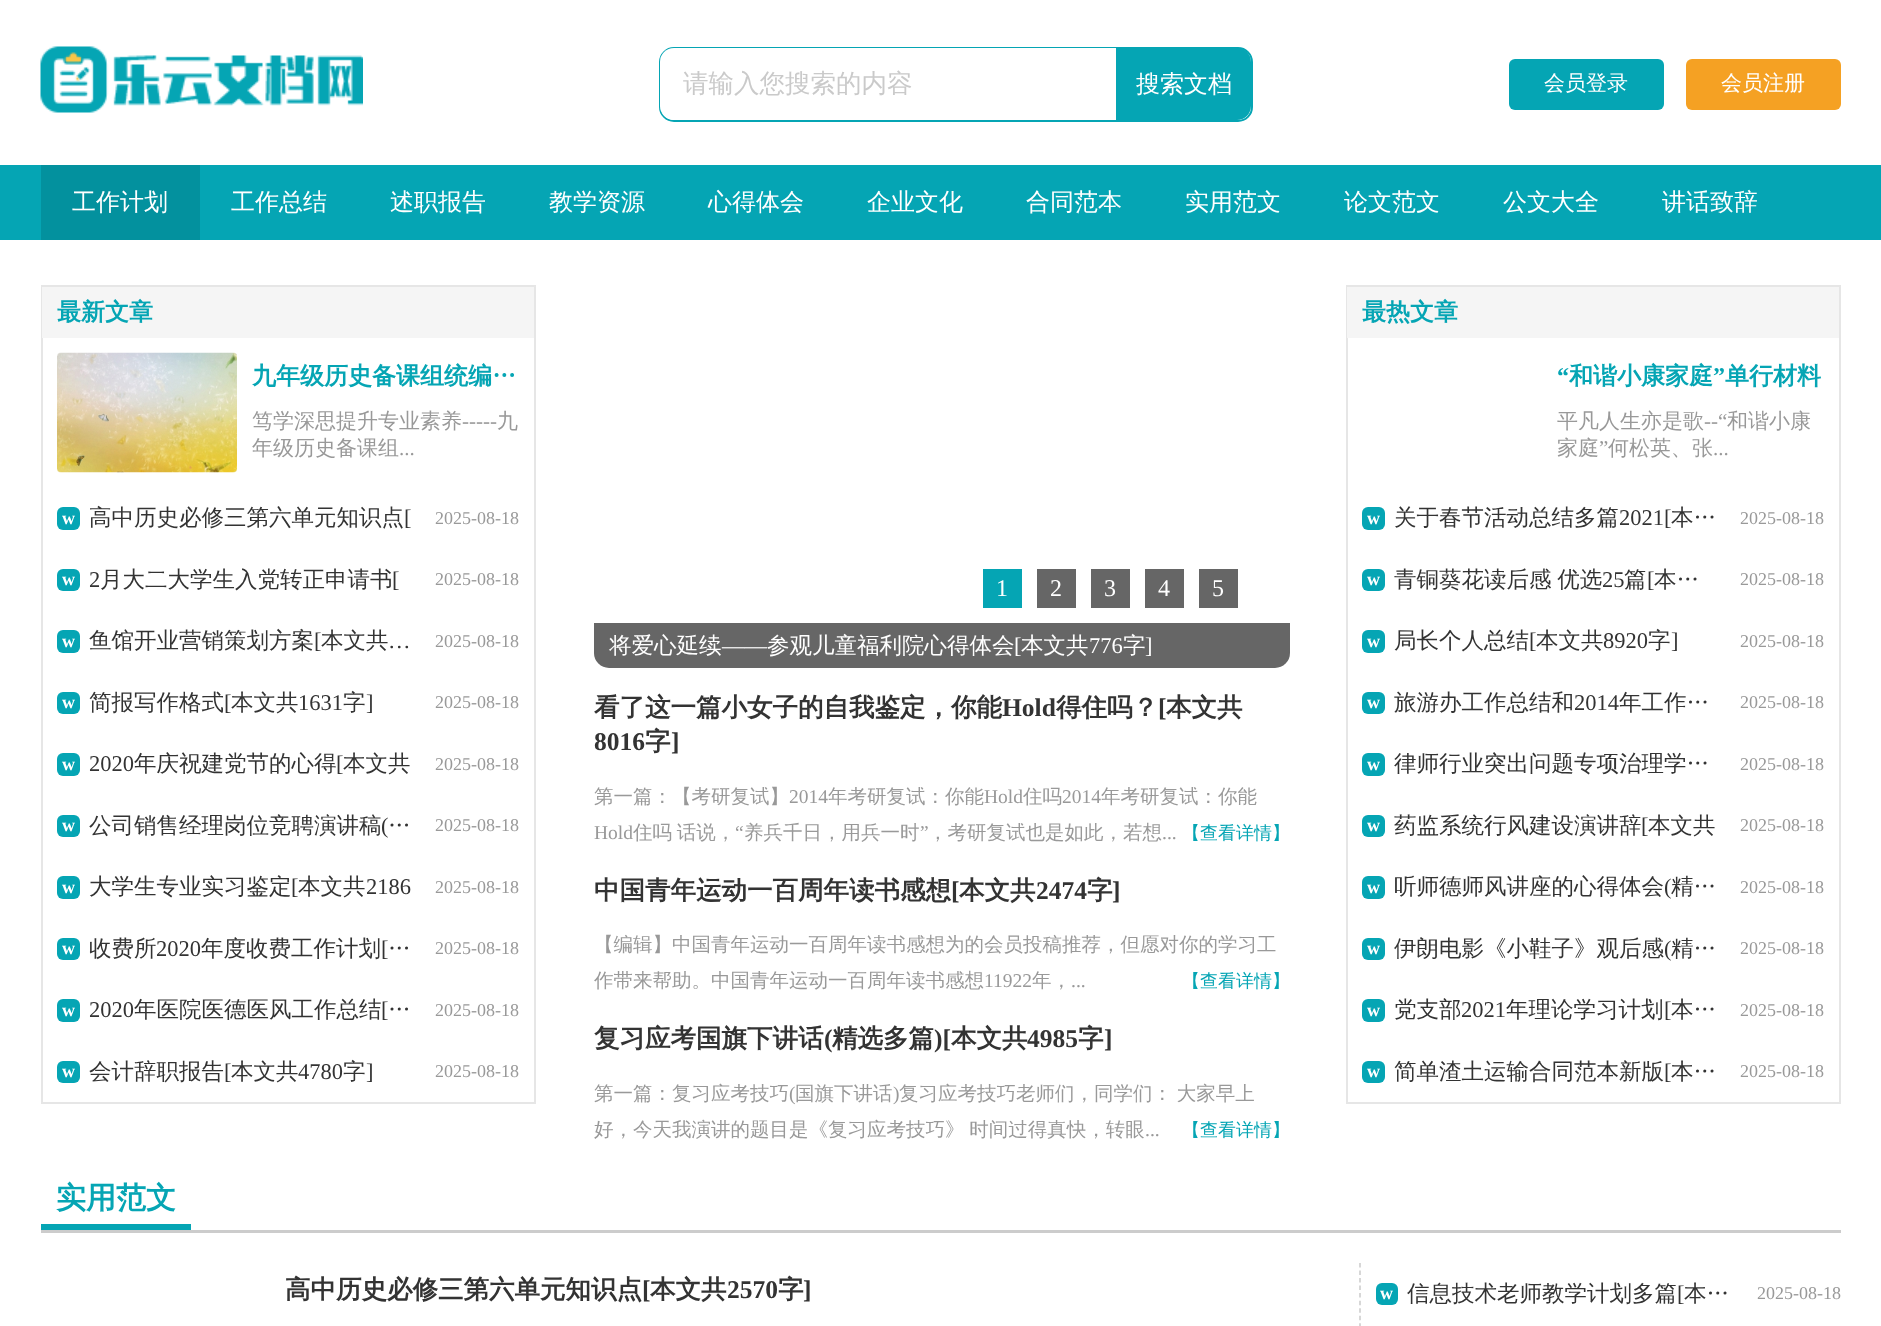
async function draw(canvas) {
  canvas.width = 1881;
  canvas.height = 1326;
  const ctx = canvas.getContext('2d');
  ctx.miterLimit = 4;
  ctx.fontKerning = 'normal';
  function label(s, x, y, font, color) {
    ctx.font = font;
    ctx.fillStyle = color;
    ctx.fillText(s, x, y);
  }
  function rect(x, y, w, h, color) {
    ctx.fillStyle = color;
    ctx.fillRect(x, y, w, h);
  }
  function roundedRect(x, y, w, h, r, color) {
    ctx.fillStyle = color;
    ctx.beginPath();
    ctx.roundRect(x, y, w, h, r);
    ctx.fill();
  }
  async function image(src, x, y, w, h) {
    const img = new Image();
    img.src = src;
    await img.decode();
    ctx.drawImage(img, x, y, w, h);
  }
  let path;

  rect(0, 0, 1881, 1326, '#fff');
  await image('assets/img1.png', 40, 46, 323, 67);
  ctx.beginPath();
  ctx.roundRect(660, 48, 592, 73, 14);
  ctx.strokeStyle = '#05a5b4';
  ctx.lineWidth = 2;
  ctx.stroke();
  ctx.beginPath();
  ctx.roundRect(660, 48, 456, 72, [14, 0, 0, 14]);
  ctx.fill();
  label('请输入您搜索的内容', 683, 92, '500 25.5px WenQuanYi Zen Hei', '#cacaca');
  ctx.fillStyle = '#05a5b4';
  ctx.beginPath();
  ctx.roundRect(1116, 48, 135, 72, [0, 14, 14, 0]);
  ctx.fill();
  label('搜索文档', 1136, 92, '500 24px WenQuanYi Zen Hei', '#fff');
  roundedRect(1509, 59, 155, 51, 6, '#05a5b4');
  label('会员登录', 1544, 90, '500 21px WenQuanYi Zen Hei', '#fff');
  roundedRect(1686, 59, 155, 51, 6, '#f5a123');
  label('会员注册', 1721, 90, '500 21px WenQuanYi Zen Hei', '#fff');
  rect(0, 165, 1881, 75, '#05a5b4');
  rect(41, 165, 159, 75, '#03919e');
  label('工作计划', 72, 210, '500 24px WenQuanYi Zen Hei', '#fff');
  label('工作总结', 231, 210, '500 24px WenQuanYi Zen Hei', '#fff');
  label('述职报告', 390, 210, '500 24px WenQuanYi Zen Hei', '#fff');
  label('教学资源', 549, 210, '500 24px WenQuanYi Zen Hei', '#fff');
  label('心得体会', 708, 210, '500 24px WenQuanYi Zen Hei', '#fff');
  label('企业文化', 867, 210, '500 24px WenQuanYi Zen Hei', '#fff');
  label('合同范本', 1026, 210, '500 24px WenQuanYi Zen Hei', '#fff');
  label('实用范文', 1185, 210, '500 24px WenQuanYi Zen Hei', '#fff');
  label('论文范文', 1344, 210, '500 24px WenQuanYi Zen Hei', '#fff');
  label('公文大全', 1503, 210, '500 24px WenQuanYi Zen Hei', '#fff');
  label('讲话致辞', 1662, 210, '500 24px WenQuanYi Zen Hei', '#fff');
  ctx.strokeStyle = '#e6e6e6';
  ctx.strokeRect(42, 286, 493, 817);
  rect(42, 287, 492, 51, '#f5f5f5');
  label('最新文章', 57, 320, 'bold 24px WenQuanYi Zen Hei', '#05a5b4');
  await image('assets/img2.png', 57, 352, 180, 121);
  label('九年级历史备课组统编…', 252, 384, 'bold 24px WenQuanYi Zen Hei', '#05a5b4');
  label('笃学深思提升专业素养', 252, 428, '500 21px WenQuanYi Zen Hei', '#999');
  label('-----', 462, 428, '21px Liberation Serif', '#999');
  label('九', 497, 428, '500 21px WenQuanYi Zen Hei', '#999');
  label('年级历史备课组', 252, 455, '500 21px WenQuanYi Zen Hei', '#999');
  label('...', 399, 455, '21px Liberation Serif', '#999');
  roundedRect(57, 507, 23, 23, 6, '#05a5b4');
  label('w', 62, 524, 'bold 18px Liberation Serif', '#fff');
  label('高中历史必修三第六单元知识点', 89, 525, '500 22.5px WenQuanYi Zen Hei', '#333');
  label('[', 404, 525, '22.5px Liberation Serif', '#333');
  label('2025-08-18', 435, 524, '18px Liberation Serif', '#999');
  roundedRect(57, 569, 23, 22, 6, '#05a5b4');
  label('w', 62, 585, 'bold 18px Liberation Serif', '#fff');
  label('2', 89, 587, '22.5px Liberation Serif', '#333');
  label('月大二大学生入党转正申请书', 100, 587, '500 22.5px WenQuanYi Zen Hei', '#333');
  label('[', 392, 587, '22.5px Liberation Serif', '#333');
  label('2025-08-18', 435, 585, '18px Liberation Serif', '#999');
  roundedRect(57, 630, 23, 23, 6, '#05a5b4');
  label('w', 62, 647, 'bold 18px Liberation Serif', '#fff');
  label('鱼馆开业营销策划方案', 89, 648, '500 22.5px WenQuanYi Zen Hei', '#333');
  label('[', 314, 648, '22.5px Liberation Serif', '#333');
  label('本文共', 321, 648, '500 22.5px WenQuanYi Zen Hei', '#333');
  label('…', 388, 648, '22.5px Liberation Serif', '#333');
  label('2025-08-18', 435, 647, '18px Liberation Serif', '#999');
  roundedRect(57, 692, 23, 22, 6, '#05a5b4');
  label('w', 62, 708, 'bold 18px Liberation Serif', '#fff');
  label('简报写作格式', 89, 710, '500 22.5px WenQuanYi Zen Hei', '#333');
  label('[', 224, 710, '22.5px Liberation Serif', '#333');
  label('本文共', 231, 710, '500 22.5px WenQuanYi Zen Hei', '#333');
  label('1631', 298, 710, '22.5px Liberation Serif', '#333');
  label('字', 343, 710, '500 22.5px WenQuanYi Zen Hei', '#333');
  label(']', 366, 710, '22.5px Liberation Serif', '#333');
  label('2025-08-18', 435, 708, '18px Liberation Serif', '#999');
  roundedRect(57, 753, 23, 23, 6, '#05a5b4');
  label('w', 62, 770, 'bold 18px Liberation Serif', '#fff');
  label('2020', 89, 771, '22.5px Liberation Serif', '#333');
  label('年庆祝建党节的心得', 134, 771, '500 22.5px WenQuanYi Zen Hei', '#333');
  label('[', 336, 771, '22.5px Liberation Serif', '#333');
  label('本文共', 343, 771, '500 22.5px WenQuanYi Zen Hei', '#333');
  label('2025-08-18', 435, 770, '18px Liberation Serif', '#999');
  roundedRect(57, 815, 23, 22, 6, '#05a5b4');
  label('w', 62, 831, 'bold 18px Liberation Serif', '#fff');
  label('公司销售经理岗位竞聘演讲稿', 89, 833, '500 22.5px WenQuanYi Zen Hei', '#333');
  label('(', 381, 833, '22.5px Liberation Serif', '#333');
  label('…', 388, 833, '500 22.5px WenQuanYi Zen Hei', '#333');
  label('2025-08-18', 435, 831, '18px Liberation Serif', '#999');
  roundedRect(57, 876, 23, 23, 6, '#05a5b4');
  label('w', 62, 893, 'bold 18px Liberation Serif', '#fff');
  label('大学生专业实习鉴定', 89, 894, '500 22.5px WenQuanYi Zen Hei', '#333');
  label('[', 291, 894, '22.5px Liberation Serif', '#333');
  label('本文共', 298, 894, '500 22.5px WenQuanYi Zen Hei', '#333');
  label('2186', 366, 894, '22.5px Liberation Serif', '#333');
  label('2025-08-18', 435, 893, '18px Liberation Serif', '#999');
  roundedRect(57, 938, 23, 22, 6, '#05a5b4');
  label('w', 62, 954, 'bold 18px Liberation Serif', '#fff');
  label('收费所', 89, 956, '500 22.5px WenQuanYi Zen Hei', '#333');
  label('2020', 156, 956, '22.5px Liberation Serif', '#333');
  label('年度收费工作计划', 201, 956, '500 22.5px WenQuanYi Zen Hei', '#333');
  label('[', 381, 956, '22.5px Liberation Serif', '#333');
  label('…', 388, 956, '500 22.5px WenQuanYi Zen Hei', '#333');
  label('2025-08-18', 435, 954, '18px Liberation Serif', '#999');
  roundedRect(57, 999, 23, 23, 6, '#05a5b4');
  label('w', 62, 1016, 'bold 18px Liberation Serif', '#fff');
  label('2020', 89, 1017, '22.5px Liberation Serif', '#333');
  label('年医院医德医风工作总结', 134, 1017, '500 22.5px WenQuanYi Zen Hei', '#333');
  label('[', 381, 1017, '22.5px Liberation Serif', '#333');
  label('…', 388, 1017, '500 22.5px WenQuanYi Zen Hei', '#333');
  label('2025-08-18', 435, 1016, '18px Liberation Serif', '#999');
  roundedRect(57, 1061, 23, 22, 6, '#05a5b4');
  label('w', 62, 1077, 'bold 18px Liberation Serif', '#fff');
  label('会计辞职报告', 89, 1079, '500 22.5px WenQuanYi Zen Hei', '#333');
  label('[', 224, 1079, '22.5px Liberation Serif', '#333');
  label('本文共', 231, 1079, '500 22.5px WenQuanYi Zen Hei', '#333');
  label('4780', 298, 1079, '22.5px Liberation Serif', '#333');
  label('字', 343, 1079, '500 22.5px WenQuanYi Zen Hei', '#333');
  label(']', 366, 1079, '22.5px Liberation Serif', '#333');
  label('2025-08-18', 435, 1077, '18px Liberation Serif', '#999');
  rect(983, 569, 39, 39, '#05a5b4');
  label('1', 996, 596, '24px Liberation Serif', '#fff');
  rect(1037, 569, 39, 39, '#666');
  label('2', 1050, 596, '24px Liberation Serif', '#fff');
  rect(1091, 569, 39, 39, '#666');
  label('3', 1104, 596, '24px Liberation Serif', '#fff');
  rect(1145, 569, 39, 39, '#666');
  label('4', 1158, 596, '24px Liberation Serif', '#fff');
  rect(1199, 569, 39, 39, '#666');
  label('5', 1212, 596, '24px Liberation Serif', '#fff');
  ctx.fillStyle = '#666';
  ctx.beginPath();
  ctx.roundRect(594, 623, 696, 45, [0, 0, 15, 15]);
  ctx.fill();
  label('将爱心延续', 609, 653, '500 22.5px WenQuanYi Zen Hei', '#fff');
  label('——', 722, 653, '22.5px Liberation Serif', '#fff');
  label('参观儿童福利院心得体会', 767, 653, '500 22.5px WenQuanYi Zen Hei', '#fff');
  label('[', 1014, 653, '22.5px Liberation Serif', '#fff');
  label('本文共', 1021, 653, '500 22.5px WenQuanYi Zen Hei', '#fff');
  label('776', 1089, 653, '22.5px Liberation Serif', '#fff');
  label('字', 1123, 653, '500 22.5px WenQuanYi Zen Hei', '#fff');
  label(']', 1145, 653, '22.5px Liberation Serif', '#fff');
  label('看了这一篇小女子的自我鉴定，你能', 594, 716, 'bold 25.5px WenQuanYi Zen Hei', '#333');
  label('Hold', 1002, 716, 'bold 25.5px Liberation Serif', '#333');
  label('得住吗？', 1056, 716, 'bold 25.5px WenQuanYi Zen Hei', '#333');
  label('[', 1158, 716, 'bold 25.5px Liberation Serif', '#333');
  label('本文共', 1166, 716, 'bold 25.5px WenQuanYi Zen Hei', '#333');
  label('8016', 594, 750, 'bold 25.5px Liberation Serif', '#333');
  label('字', 645, 750, 'bold 25.5px WenQuanYi Zen Hei', '#333');
  label(']', 671, 750, 'bold 25.5px Liberation Serif', '#333');
  label('第一篇：【考研复试】', 594, 803, '500 19.5px WenQuanYi Zen Hei', '#999');
  label('2014', 789, 803, '19.5px Liberation Serif', '#999');
  label('年考研复试：你能', 828, 803, '500 19.5px WenQuanYi Zen Hei', '#999');
  label('Hold', 984, 803, '19.5px Liberation Serif', '#999');
  label('住吗', 1023, 803, '500 19.5px WenQuanYi Zen Hei', '#999');
  label('2014', 1062, 803, '19.5px Liberation Serif', '#999');
  label('年考研复试：你能', 1101, 803, '500 19.5px WenQuanYi Zen Hei', '#999');
  label('Hold', 594, 839, '19.5px Liberation Serif', '#999');
  ctx.wordSpacing = '-1px';
  label('住吗 话说，', 633, 839, '500 19.5px WenQuanYi Zen Hei', '#999');
  ctx.wordSpacing = '0px';
  label('“', 735, 839, '19.5px Liberation Serif', '#999');
  label('养兵千日，用兵一时', 744, 839, '500 19.5px WenQuanYi Zen Hei', '#999');
  label('”', 920, 839, '19.5px Liberation Serif', '#999');
  label('，考研复试也是如此，若想', 928, 839, '500 19.5px WenQuanYi Zen Hei', '#999');
  label('【查看详情】', 1182, 839, '500 18px WenQuanYi Zen Hei', '#05a5b4');
  label('...', 1162, 839, '19.5px Liberation Serif', '#999');
  label('中国青年运动一百周年读书感想', 594, 899, 'bold 25.5px WenQuanYi Zen Hei', '#333');
  label('[', 951, 899, 'bold 25.5px Liberation Serif', '#333');
  label('本文共', 959, 899, 'bold 25.5px WenQuanYi Zen Hei', '#333');
  label('2474', 1036, 899, 'bold 25.5px Liberation Serif', '#333');
  label('字', 1087, 899, 'bold 25.5px WenQuanYi Zen Hei', '#333');
  label(']', 1112, 899, 'bold 25.5px Liberation Serif', '#333');
  label('【编辑】中国青年运动一百周年读书感想为的会员投稿推荐，但愿对你的学习工', 594, 951, '500 19.5px WenQuanYi Zen Hei', '#999');
  label('作带来帮助。中国青年运动一百周年读书感想', 594, 987, '500 19.5px WenQuanYi Zen Hei', '#999');
  label('11922', 984, 987, '19.5px Liberation Serif', '#999');
  label('年，', 1032, 987, '500 19.5px WenQuanYi Zen Hei', '#999');
  label('...', 1071, 987, '19.5px Liberation Serif', '#999');
  label('【查看详情】', 1182, 987, '500 18px WenQuanYi Zen Hei', '#05a5b4');
  label('复习应考国旗下讲话', 594, 1047, 'bold 25.5px WenQuanYi Zen Hei', '#333');
  label('(', 824, 1047, 'bold 25.5px Liberation Serif', '#333');
  label('精选多篇', 832, 1047, 'bold 25.5px WenQuanYi Zen Hei', '#333');
  label(')[', 934, 1047, 'bold 25.5px Liberation Serif', '#333');
  label('本文共', 951, 1047, 'bold 25.5px WenQuanYi Zen Hei', '#333');
  label('4985', 1027, 1047, 'bold 25.5px Liberation Serif', '#333');
  label('字', 1078, 1047, 'bold 25.5px WenQuanYi Zen Hei', '#333');
  label(']', 1104, 1047, 'bold 25.5px Liberation Serif', '#333');
  label('第一篇：复习应考技巧', 594, 1100, '500 19.5px WenQuanYi Zen Hei', '#999');
  label('(', 789, 1100, '19.5px Liberation Serif', '#999');
  label('国旗下讲话', 795, 1100, '500 19.5px WenQuanYi Zen Hei', '#999');
  label(')', 893, 1100, '19.5px Liberation Serif', '#999');
  ctx.wordSpacing = '-1px';
  label('复习应考技巧老师们，同学们： 大家早上', 899, 1100, '500 19.5px WenQuanYi Zen Hei', '#999');
  label('好，今天我演讲的题目是《复习应考技巧》 时间过得真快，转眼', 594, 1136, '500 19.5px WenQuanYi Zen Hei', '#999');
  ctx.wordSpacing = '0px';
  label('...', 1145, 1136, '19.5px Liberation Serif', '#999');
  label('【查看详情】', 1182, 1136, '500 18px WenQuanYi Zen Hei', '#05a5b4');
  ctx.strokeRect(1347, 286, 493, 817);
  rect(1347, 287, 492, 51, '#f5f5f5');
  label('最热文章', 1362, 320, 'bold 24px WenQuanYi Zen Hei', '#05a5b4');
  label('“', 1557, 384, 'bold 24px Liberation Serif', '#05a5b4');
  label('和谐小康家庭', 1569, 384, 'bold 24px WenQuanYi Zen Hei', '#05a5b4');
  label('”', 1713, 384, 'bold 24px Liberation Serif', '#05a5b4');
  label('单行材料', 1725, 384, 'bold 24px WenQuanYi Zen Hei', '#05a5b4');
  label('平凡人生亦是歌', 1557, 428, '500 21px WenQuanYi Zen Hei', '#999');
  label('--“', 1704, 428, '21px Liberation Serif', '#999');
  label('和谐小康', 1727, 428, '500 21px WenQuanYi Zen Hei', '#999');
  label('家庭', 1557, 455, '500 21px WenQuanYi Zen Hei', '#999');
  label('”', 1599, 455, '21px Liberation Serif', '#999');
  label('何松英、张', 1608, 455, '500 21px WenQuanYi Zen Hei', '#999');
  label('...', 1713, 455, '21px Liberation Serif', '#999');
  roundedRect(1362, 507, 23, 23, 6, '#05a5b4');
  label('w', 1367, 524, 'bold 18px Liberation Serif', '#fff');
  label('关于春节活动总结多篇', 1394, 525, '500 22.5px WenQuanYi Zen Hei', '#333');
  label('2021[', 1619, 525, '22.5px Liberation Serif', '#333');
  label('本…', 1671, 525, '500 22.5px WenQuanYi Zen Hei', '#333');
  label('2025-08-18', 1740, 524, '18px Liberation Serif', '#999');
  roundedRect(1362, 569, 23, 22, 6, '#05a5b4');
  label('w', 1367, 585, 'bold 18px Liberation Serif', '#fff');
  ctx.wordSpacing = '-1px';
  label('青铜葵花读后感 优选', 1394, 587, '500 22.5px WenQuanYi Zen Hei', '#333');
  ctx.wordSpacing = '0px';
  label('25', 1602, 587, '22.5px Liberation Serif', '#333');
  label('篇', 1624, 587, '500 22.5px WenQuanYi Zen Hei', '#333');
  label('[', 1647, 587, '22.5px Liberation Serif', '#333');
  label('本…', 1654, 587, '500 22.5px WenQuanYi Zen Hei', '#333');
  label('2025-08-18', 1740, 585, '18px Liberation Serif', '#999');
  roundedRect(1362, 630, 23, 23, 6, '#05a5b4');
  label('w', 1367, 647, 'bold 18px Liberation Serif', '#fff');
  label('局长个人总结', 1394, 648, '500 22.5px WenQuanYi Zen Hei', '#333');
  label('[', 1529, 648, '22.5px Liberation Serif', '#333');
  label('本文共', 1536, 648, '500 22.5px WenQuanYi Zen Hei', '#333');
  label('8920', 1603, 648, '22.5px Liberation Serif', '#333');
  label('字', 1648, 648, '500 22.5px WenQuanYi Zen Hei', '#333');
  label(']', 1671, 648, '22.5px Liberation Serif', '#333');
  label('2025-08-18', 1740, 647, '18px Liberation Serif', '#999');
  roundedRect(1362, 692, 23, 22, 6, '#05a5b4');
  label('w', 1367, 708, 'bold 18px Liberation Serif', '#fff');
  label('旅游办工作总结和', 1394, 710, '500 22.5px WenQuanYi Zen Hei', '#333');
  label('2014', 1574, 710, '22.5px Liberation Serif', '#333');
  label('年工作…', 1619, 710, '500 22.5px WenQuanYi Zen Hei', '#333');
  label('2025-08-18', 1740, 708, '18px Liberation Serif', '#999');
  roundedRect(1362, 753, 23, 23, 6, '#05a5b4');
  label('w', 1367, 770, 'bold 18px Liberation Serif', '#fff');
  label('律师行业突出问题专项治理学…', 1394, 771, '500 22.5px WenQuanYi Zen Hei', '#333');
  label('2025-08-18', 1740, 770, '18px Liberation Serif', '#999');
  roundedRect(1362, 815, 23, 22, 6, '#05a5b4');
  label('w', 1367, 831, 'bold 18px Liberation Serif', '#fff');
  label('药监系统行风建设演讲辞', 1394, 833, '500 22.5px WenQuanYi Zen Hei', '#333');
  label('[', 1641, 833, '22.5px Liberation Serif', '#333');
  label('本文共', 1648, 833, '500 22.5px WenQuanYi Zen Hei', '#333');
  label('2025-08-18', 1740, 831, '18px Liberation Serif', '#999');
  roundedRect(1362, 876, 23, 23, 6, '#05a5b4');
  label('w', 1367, 893, 'bold 18px Liberation Serif', '#fff');
  label('听师德师风讲座的心得体会', 1394, 894, '500 22.5px WenQuanYi Zen Hei', '#333');
  label('(', 1664, 894, '22.5px Liberation Serif', '#333');
  label('精…', 1671, 894, '500 22.5px WenQuanYi Zen Hei', '#333');
  label('2025-08-18', 1740, 893, '18px Liberation Serif', '#999');
  roundedRect(1362, 938, 23, 22, 6, '#05a5b4');
  label('w', 1367, 954, 'bold 18px Liberation Serif', '#fff');
  label('伊朗电影《小鞋子》观后感', 1394, 956, '500 22.5px WenQuanYi Zen Hei', '#333');
  label('(', 1664, 956, '22.5px Liberation Serif', '#333');
  label('精…', 1671, 956, '500 22.5px WenQuanYi Zen Hei', '#333');
  label('2025-08-18', 1740, 954, '18px Liberation Serif', '#999');
  roundedRect(1362, 999, 23, 23, 6, '#05a5b4');
  label('w', 1367, 1016, 'bold 18px Liberation Serif', '#fff');
  label('党支部', 1394, 1017, '500 22.5px WenQuanYi Zen Hei', '#333');
  label('2021', 1461, 1017, '22.5px Liberation Serif', '#333');
  label('年理论学习计划', 1506, 1017, '500 22.5px WenQuanYi Zen Hei', '#333');
  label('[', 1664, 1017, '22.5px Liberation Serif', '#333');
  label('本…', 1671, 1017, '500 22.5px WenQuanYi Zen Hei', '#333');
  label('2025-08-18', 1740, 1016, '18px Liberation Serif', '#999');
  roundedRect(1362, 1061, 23, 22, 6, '#05a5b4');
  label('w', 1367, 1077, 'bold 18px Liberation Serif', '#fff');
  label('简单渣土运输合同范本新版', 1394, 1079, '500 22.5px WenQuanYi Zen Hei', '#333');
  label('[', 1664, 1079, '22.5px Liberation Serif', '#333');
  label('本…', 1671, 1079, '500 22.5px WenQuanYi Zen Hei', '#333');
  label('2025-08-18', 1740, 1077, '18px Liberation Serif', '#999');
  rect(41, 1230, 1800, 3, '#ccc');
  rect(41, 1224, 150, 6, '#05a5b4');
  label('实用范文', 56, 1208, 'bold 30px WenQuanYi Zen Hei', '#05a5b4');
  label('高中历史必修三第六单元知识点', 285, 1298, 'bold 25.5px WenQuanYi Zen Hei', '#333');
  label('[', 642, 1298, 'bold 25.5px Liberation Serif', '#333');
  label('本文共', 650, 1298, 'bold 25.5px WenQuanYi Zen Hei', '#333');
  label('2570', 727, 1298, 'bold 25.5px Liberation Serif', '#333');
  label('字', 778, 1298, 'bold 25.5px WenQuanYi Zen Hei', '#333');
  label(']', 803, 1298, 'bold 25.5px Liberation Serif', '#333');
  path = new Path2D('M1360 1263V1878');
  ctx.strokeStyle = '#cacaca';
  ctx.lineWidth = 1.5;
  ctx.setLineDash([4.5, 3.03]);
  ctx.stroke(path);
  roundedRect(1376, 1283, 22, 22, 6, '#05a5b4');
  label('w', 1380, 1299, 'bold 18px Liberation Serif', '#fff');
  label('信息技术老师教学计划多篇', 1407, 1301, '500 22.5px WenQuanYi Zen Hei', '#333');
  label('[', 1677, 1301, '22.5px Liberation Serif', '#333');
  label('本…', 1684, 1301, '500 22.5px WenQuanYi Zen Hei', '#333');
  label('2025-08-18', 1757, 1299, '18px Liberation Serif', '#999');
}

draw(document.querySelector('canvas'));
